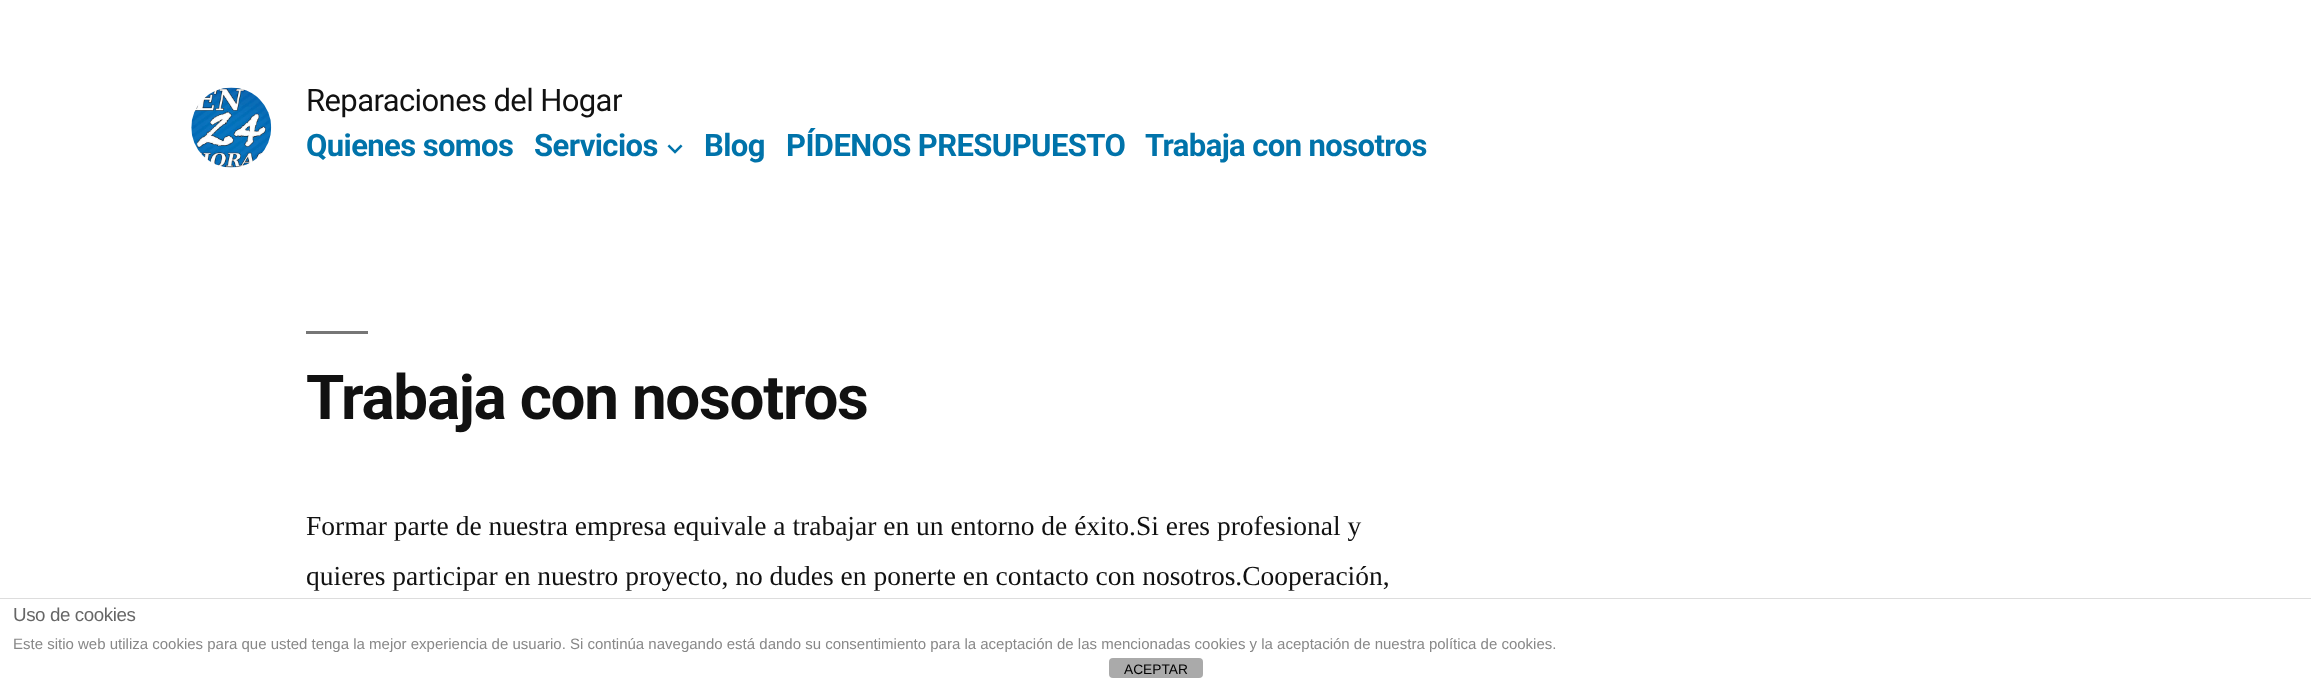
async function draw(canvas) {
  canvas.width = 2311;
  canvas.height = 684;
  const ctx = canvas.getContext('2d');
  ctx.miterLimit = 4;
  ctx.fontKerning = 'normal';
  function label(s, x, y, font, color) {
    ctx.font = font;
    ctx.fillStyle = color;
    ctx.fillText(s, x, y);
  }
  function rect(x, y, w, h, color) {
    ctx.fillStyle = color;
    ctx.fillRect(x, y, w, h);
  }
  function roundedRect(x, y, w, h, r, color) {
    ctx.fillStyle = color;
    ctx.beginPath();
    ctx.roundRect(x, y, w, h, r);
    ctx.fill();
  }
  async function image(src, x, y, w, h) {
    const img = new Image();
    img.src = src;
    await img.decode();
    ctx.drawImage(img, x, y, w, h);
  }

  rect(0, 0, 2311, 684, '#fff');
  await image('assets/img1.png', 191, 87, 81, 81);
  ctx.letterSpacing = '-0.6px';
  label('Reparaciones del Hogar', 306, 111, '31px Roboto', '#111');
  label('Quienes somos', 306, 156, 'bold 31px Roboto', '#0073aa');
  label('Servicios', 534, 156, 'bold 31px Roboto', '#0073aa');
  await image('assets/img2.png', 667, 144, 16, 10);
  label('Blog', 704, 156, 'bold 31px Roboto', '#0073aa');
  label('PÍDENOS PRESUPUESTO', 786, 156, 'bold 31px Roboto', '#0073aa');
  label('Trabaja con nosotros', 1145, 156, 'bold 31px Roboto', '#0073aa');
  rect(306, 331, 62, 3, '#767676');
  ctx.letterSpacing = '-1.25px';
  label('Trabaja con nosotros', 306, 419, 'bold 61.9px Roboto', '#111');
  ctx.letterSpacing = '0px';
  label('Formar parte de nuestra empresa equivale a trabajar en un entorno de éxito.Si eres profesional y', 306, 535, '27.5px Liberation Serif', '#111');
  label('quieres participar en nuestro proyecto, no dudes en ponerte en contacto con nosotros.Cooperación,', 306, 585, '27.5px Liberation Serif', '#111');
  rect(0, 598, 2311, 1, '#ddd');
  ctx.letterSpacing = '-0.4px';
  label('Uso de cookies', 13, 621, '18.75px Liberation Sans', '#666');
  ctx.letterSpacing = '0px';
  label('Este sitio web utiliza cookies para que usted tenga la mejor experiencia de usuario. Si continúa navegando está dando su consentimiento para la aceptación de las mencionadas cookies y la aceptación de nuestra política de cookies.', 13, 649, '15px Liberation Sans', '#888');
  roundedRect(1109, 658, 94, 20, 4, '#aaa');
  label('ACEPTAR', 1124, 674, '13.75px Liberation Sans', '#000');
}

draw(document.querySelector('canvas'));
